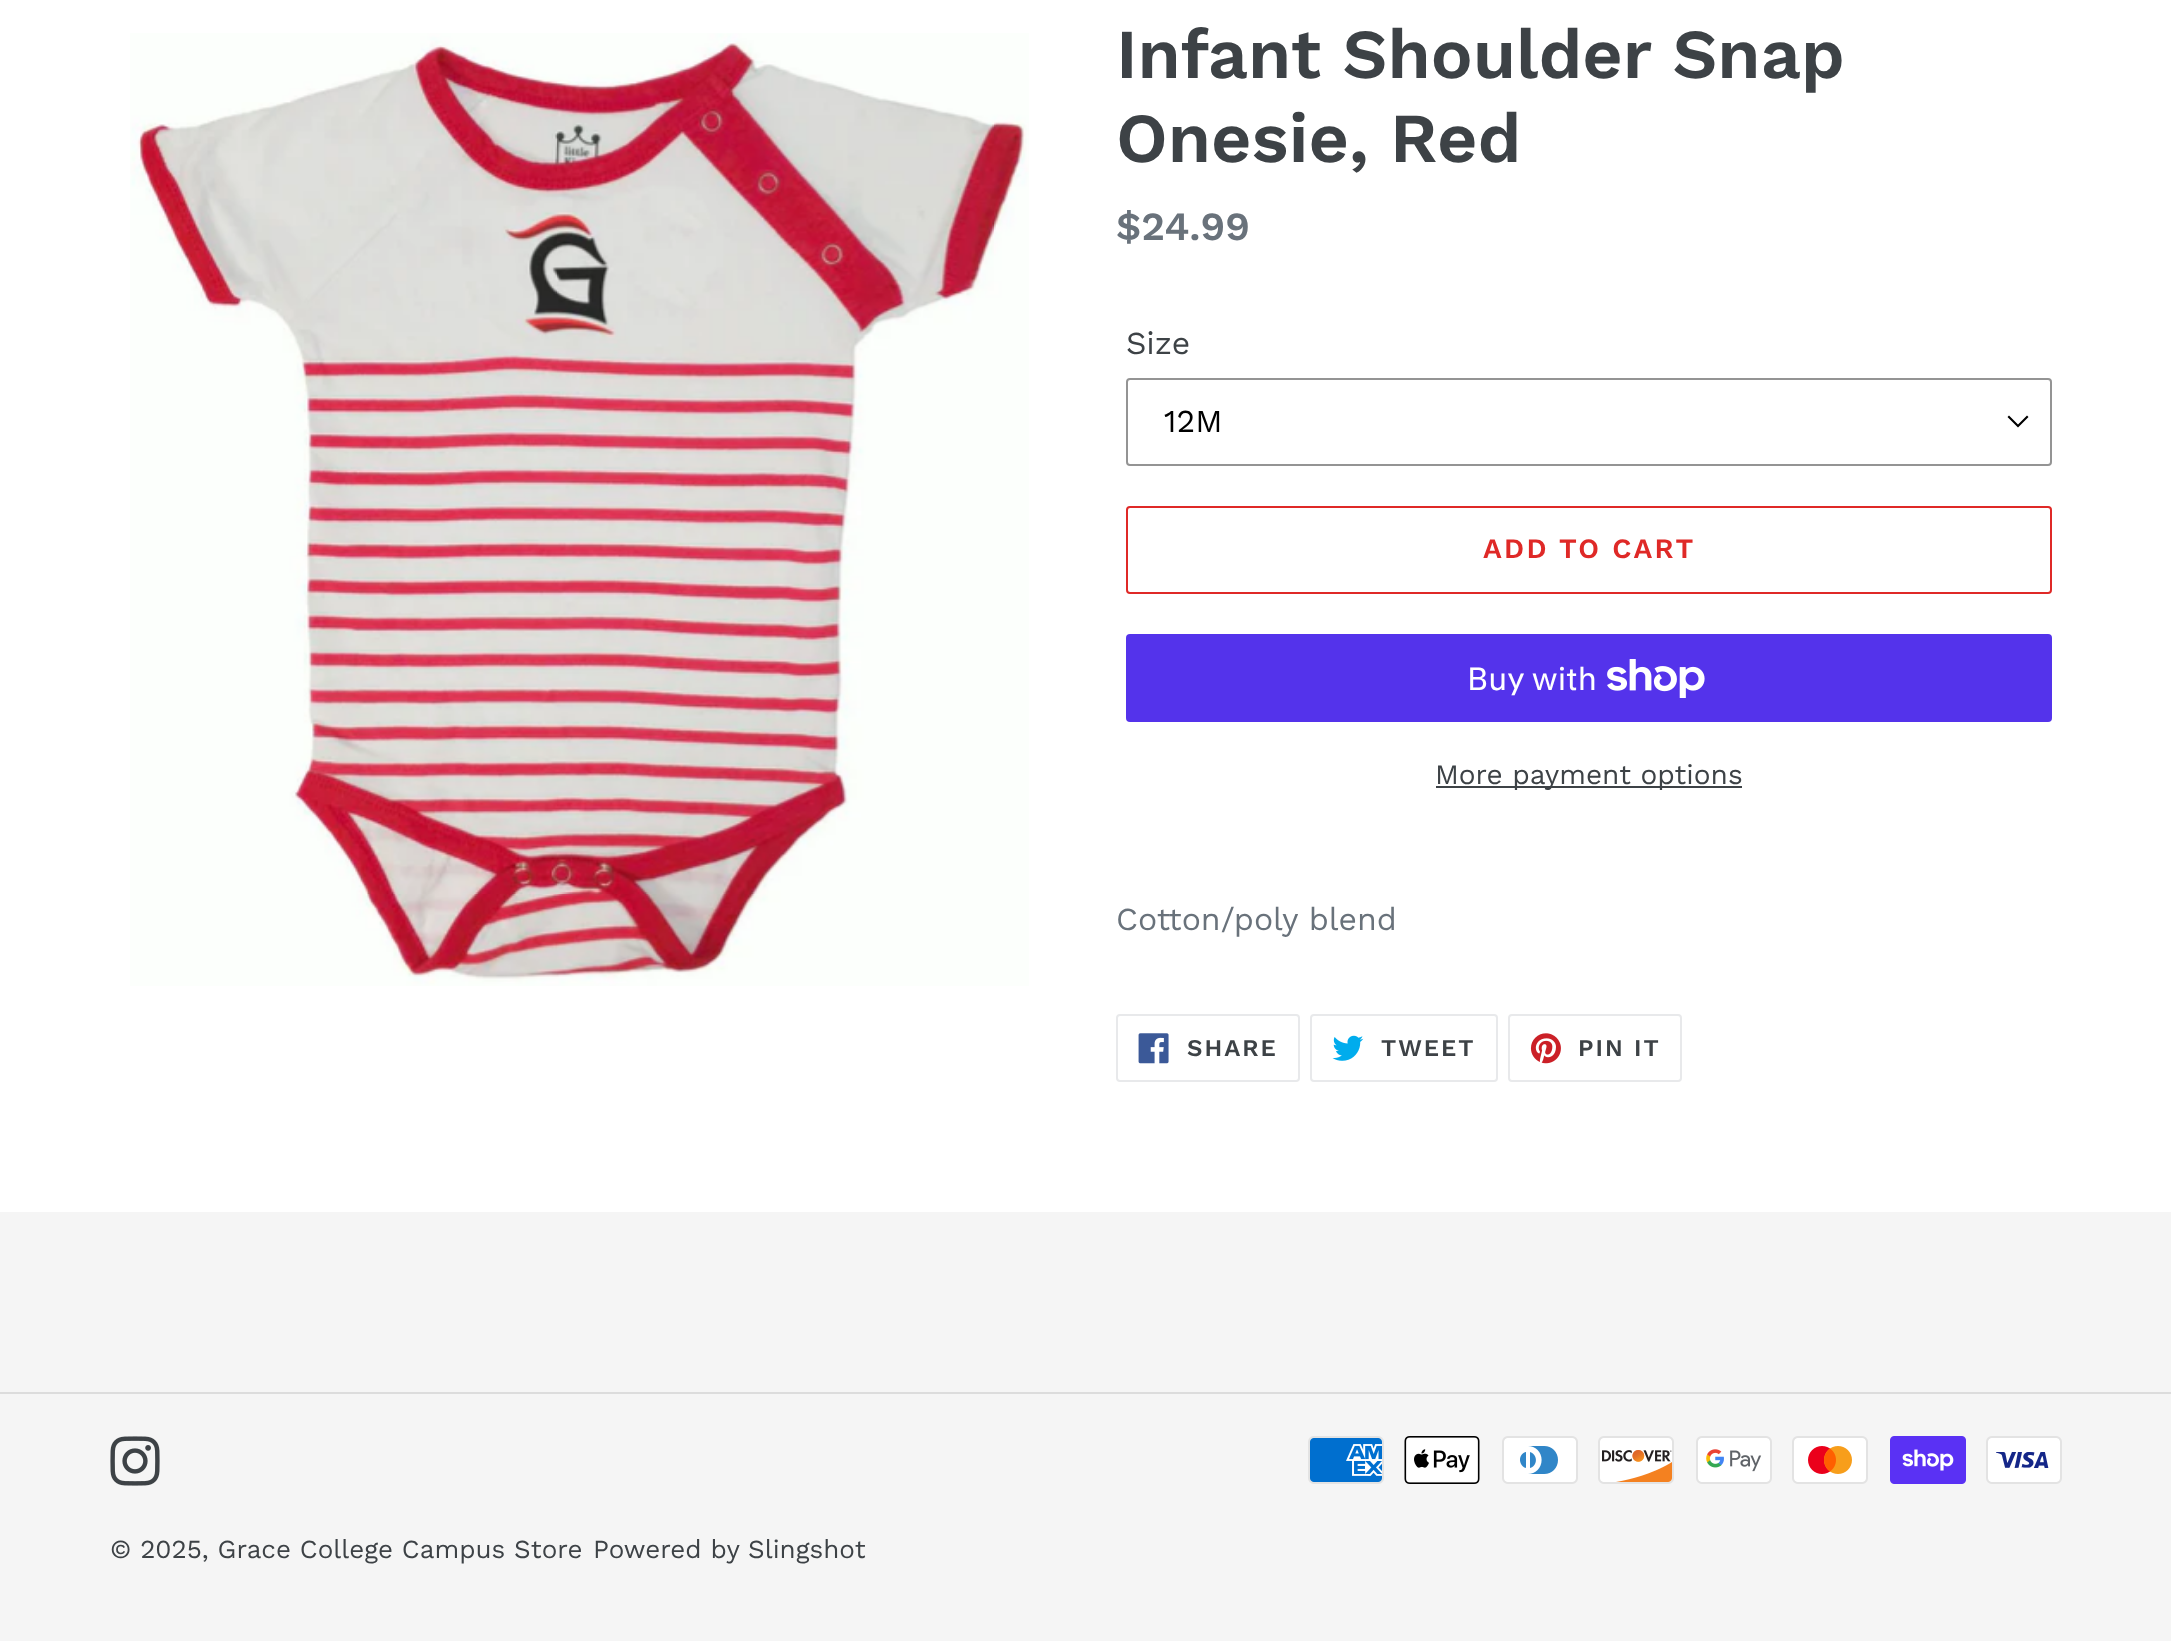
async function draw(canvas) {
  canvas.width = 2171;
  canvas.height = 1641;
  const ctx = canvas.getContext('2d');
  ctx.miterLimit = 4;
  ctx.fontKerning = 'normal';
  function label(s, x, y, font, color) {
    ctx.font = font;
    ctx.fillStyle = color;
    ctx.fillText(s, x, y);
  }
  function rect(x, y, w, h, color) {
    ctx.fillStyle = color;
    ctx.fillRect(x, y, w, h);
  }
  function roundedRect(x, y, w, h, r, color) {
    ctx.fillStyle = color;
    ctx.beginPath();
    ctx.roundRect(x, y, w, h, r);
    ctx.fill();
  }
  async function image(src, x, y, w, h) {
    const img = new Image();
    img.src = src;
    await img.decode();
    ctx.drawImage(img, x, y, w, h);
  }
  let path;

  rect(0, 0, 2171, 1641, '#fff');
  await image('assets/img1.png', 130, 33, 899, 953);
  label('Infant Shoulder Snap', 1116, 78, '600 70px Work Sans', '#3d4246');
  label('Onesie, Red', 1116, 162, '600 70px Work Sans', '#3d4246');
  label('$24.99', 1116, 240, '600 40px Work Sans', '#69727b');
  label('Size', 1126, 354, '32px Work Sans', '#3d4246');
  ctx.fillStyle = '#000';
  path = new Path2D('M2018 427.5L2007.5 417L2009 415.5L2018 424.5L2027 415.5L2028.5 417Z');
  ctx.fill(path);
  ctx.beginPath();
  ctx.roundRect(1127, 379, 924, 86, 3);
  ctx.strokeStyle = '#949494';
  ctx.lineWidth = 2;
  ctx.stroke();
  label('12M', 1164, 432, '32px Work Sans', '#000');
  ctx.beginPath();
  ctx.roundRect(1127, 507, 924, 86, 3);
  ctx.strokeStyle = '#df2927';
  ctx.stroke();
  ctx.letterSpacing = '2.25px';
  label('ADD TO CART', 1483, 558, '600 28px Work Sans', '#df2927');
  roundedRect(1126, 634, 926, 88, 4, '#5433eb');
  ctx.letterSpacing = '0px';
  label('Buy with', 1467, 690, '32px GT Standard', '#fff');
  await image('assets/img2.png', 1607, 659, 98, 39);
  rect(1436, 786, 306, 2, '#3d4246');
  label('More payment options', 1435, 784, '28px Work Sans', '#3d4246');
  label('Cotton/poly blend', 1116, 930, '32px Work Sans', '#69727b');
  ctx.beginPath();
  ctx.roundRect(1117, 1015, 182, 66, 3);
  ctx.strokeStyle = '#e8e9eb';
  ctx.stroke();
  await image('assets/img3.png', 1138, 1033, 31, 31);
  ctx.letterSpacing = '2px';
  label('SHARE', 1187, 1056, '600 24px Work Sans', '#3d4246');
  ctx.beginPath();
  ctx.roundRect(1311, 1015, 186, 66, 3);
  ctx.stroke();
  await image('assets/img4.png', 1332, 1035, 32, 26);
  label('TWEET', 1381, 1056, '600 24px Work Sans', '#3d4246');
  ctx.beginPath();
  ctx.roundRect(1509, 1015, 172, 66, 3);
  ctx.stroke();
  await image('assets/img5.png', 1530, 1033, 31, 31);
  label('PIN IT', 1578, 1056, '600 24px Work Sans', '#3d4246');
  rect(0, 1212, 2171, 429, '#f5f5f5');
  rect(0, 1392, 2171, 2, '#dcdcdc');
  await image('assets/img6.png', 110, 1436, 50, 50);
  await image('assets/img7.png', 1308, 1436, 76, 48);
  await image('assets/img8.png', 1404, 1436, 76, 48);
  await image('assets/img9.png', 1502, 1436, 76, 48);
  await image('assets/img10.png', 1598, 1436, 76, 48);
  await image('assets/img11.png', 1696, 1436, 76, 48);
  await image('assets/img12.png', 1792, 1436, 76, 48);
  await image('assets/img13.png', 1890, 1436, 76, 48);
  await image('assets/img14.png', 1986, 1436, 76, 48);
  ctx.letterSpacing = '0px';
  label('© 2025, Grace College Campus Store', 110, 1558, '26px Work Sans', '#3d4246');
  label('Powered by Slingshot', 593, 1558, '26px Work Sans', '#3d4246');
}

draw(document.querySelector('canvas'));
